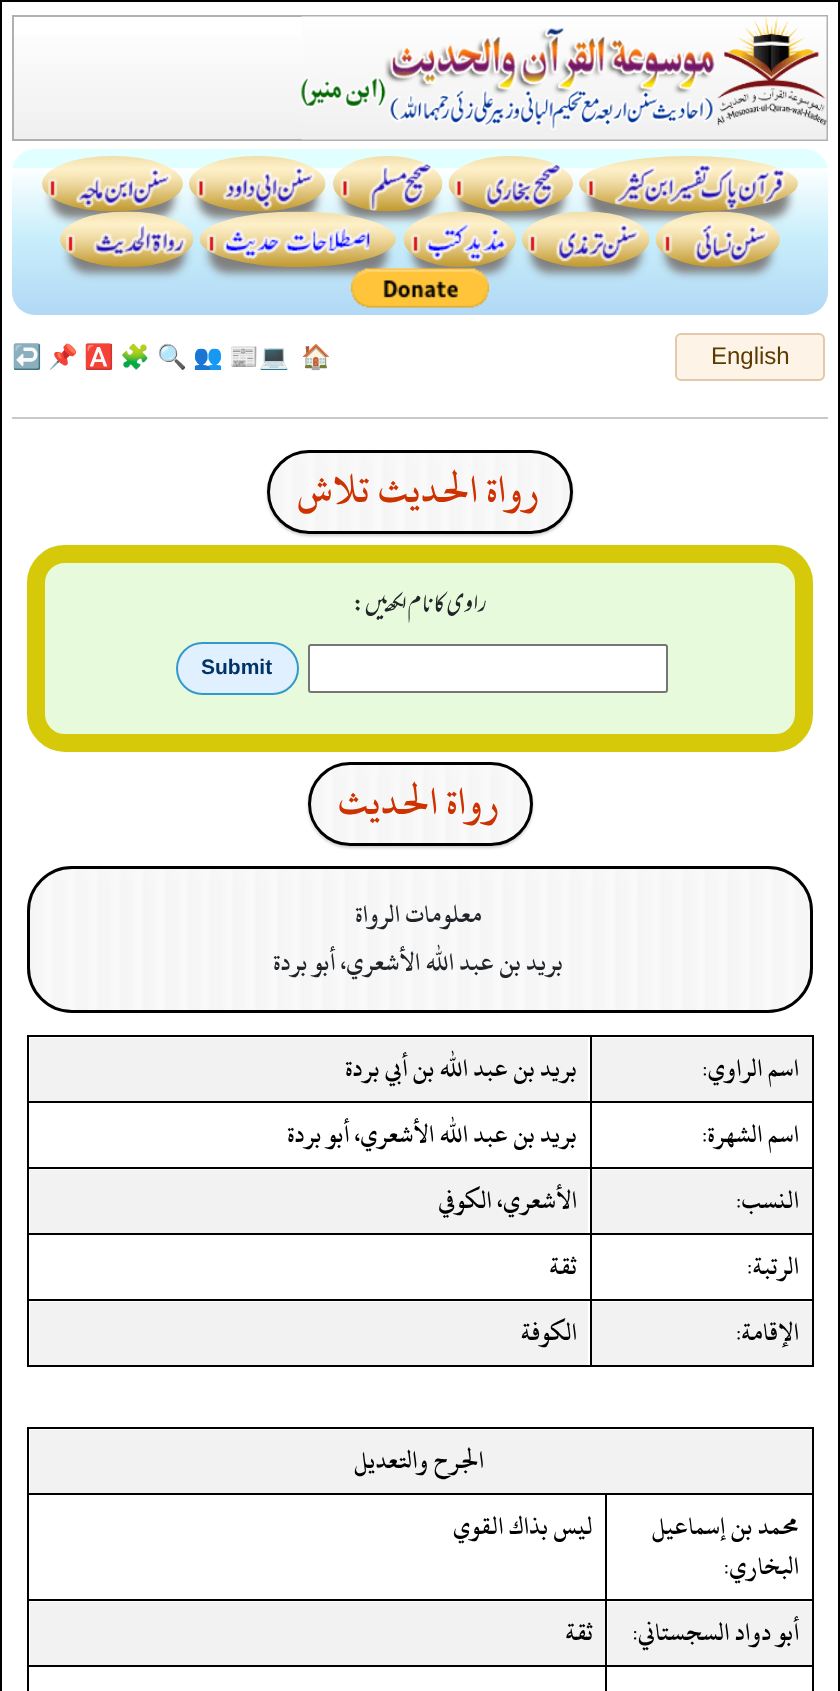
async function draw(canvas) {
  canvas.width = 840;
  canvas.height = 1691;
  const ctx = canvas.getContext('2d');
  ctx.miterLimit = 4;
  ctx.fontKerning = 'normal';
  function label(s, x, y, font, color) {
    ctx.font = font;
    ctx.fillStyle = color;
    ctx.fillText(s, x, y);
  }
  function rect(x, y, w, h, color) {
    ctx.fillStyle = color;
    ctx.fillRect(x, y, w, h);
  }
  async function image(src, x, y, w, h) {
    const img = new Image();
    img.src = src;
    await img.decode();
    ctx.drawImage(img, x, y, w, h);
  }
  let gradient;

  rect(0, 0, 840, 1691, '#fff');
  ctx.strokeStyle = '#000';
  ctx.lineWidth = 2;
  ctx.strokeRect(1, 1, 838, 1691);
  gradient = ctx.createLinearGradient(420, 16, 420, 140);
  gradient.addColorStop(0, '#fff');
  gradient.addColorStop(1, '#efefef');
  gradient.addColorStop(1, '#e3eaed');
  ctx.fillStyle = gradient;
  ctx.fillRect(14, 35, 288, 104);
  ctx.strokeStyle = '#afb0b0';
  ctx.strokeRect(13, 16, 814, 124);
  await image('assets/img1.png', 301, 16, 526, 124);
  gradient = ctx.createLinearGradient(420, 148, 420, 315);
  gradient.addColorStop(0, '#e1ffff');
  gradient.addColorStop(0.12, '#e1ffff');
  gradient.addColorStop(0.12, '#fdffff');
  gradient.addColorStop(0.3, '#e6f8fd');
  gradient.addColorStop(0.54, '#c8eefb');
  gradient.addColorStop(0.75, '#bee4f8');
  gradient.addColorStop(1, '#b1d8f5');
  ctx.fillStyle = gradient;
  ctx.beginPath();
  ctx.roundRect(12, 149, 816, 166, 23);
  ctx.fill();
  ctx.fillStyle = '#808080';
  ctx.filter = 'blur(4.5px)';
  ctx.beginPath();
  ctx.roundRect(588, 180, 201, 38, 19);
  ctx.fill();
  ctx.filter = 'none';
  await image('assets/img2.png', 579, 156, 219, 56);
  ctx.filter = 'blur(4.5px)';
  ctx.beginPath();
  ctx.roundRect(458, 180, 106, 38, 19);
  ctx.fill();
  ctx.filter = 'none';
  await image('assets/img3.png', 448, 156, 125, 56);
  ctx.filter = 'blur(4.5px)';
  ctx.beginPath();
  ctx.roundRect(342, 180, 92, 38, 19);
  ctx.fill();
  ctx.filter = 'none';
  await image('assets/img4.png', 333, 156, 110, 56);
  ctx.filter = 'blur(4.5px)';
  ctx.beginPath();
  ctx.roundRect(198, 180, 119, 38, 19);
  ctx.fill();
  ctx.filter = 'none';
  await image('assets/img5.png', 189, 156, 137, 56);
  ctx.filter = 'blur(4.5px)';
  ctx.beginPath();
  ctx.roundRect(51, 180, 123, 38, 19);
  ctx.fill();
  ctx.filter = 'none';
  await image('assets/img6.png', 42, 156, 141, 56);
  ctx.filter = 'blur(4.5px)';
  ctx.beginPath();
  ctx.roundRect(665, 236, 106, 37, 18.5);
  ctx.fill();
  ctx.filter = 'none';
  await image('assets/img7.png', 655, 211, 125, 56);
  ctx.filter = 'blur(4.5px)';
  ctx.beginPath();
  ctx.roundRect(531, 236, 110, 37, 18.5);
  ctx.fill();
  ctx.filter = 'none';
  await image('assets/img8.png', 522, 211, 128, 56);
  ctx.filter = 'blur(4.5px)';
  ctx.beginPath();
  ctx.roundRect(413, 236, 94, 37, 18.5);
  ctx.fill();
  ctx.filter = 'none';
  await image('assets/img9.png', 403, 211, 113, 56);
  ctx.filter = 'blur(4.5px)';
  ctx.beginPath();
  ctx.roundRect(209, 236, 178, 37, 18.5);
  ctx.fill();
  ctx.filter = 'none';
  await image('assets/img10.png', 199, 211, 197, 56);
  ctx.filter = 'blur(4.5px)';
  ctx.beginPath();
  ctx.roundRect(69, 236, 116, 37, 18.5);
  ctx.fill();
  ctx.filter = 'none';
  await image('assets/img11.png', 60, 211, 134, 56);
  await image('assets/img12.png', 351, 268, 138, 40);
  ctx.fillStyle = '#fdf3e7';
  ctx.beginPath();
  ctx.roundRect(676, 334, 148, 46, 5);
  ctx.fill();
  ctx.strokeStyle = '#e3c9a9';
  ctx.stroke();
  label('English', 711, 364, '24px Liberation Sans', '#5c3b00');
  label('🏠', 301, 365, '24px Noto Color Emoji', '#0d6efd');
  label('💻', 259, 365, '24px Noto Color Emoji', '#212529');
  label('📰', 229, 365, '24px Noto Color Emoji', '#0d6efd');
  label('👥', 193, 365, '24px Noto Color Emoji', '#0d6efd');
  label('🔍', 157, 365, '24px Noto Color Emoji', '#0d6efd');
  label('🧩', 120, 365, '24px Noto Color Emoji', '#0d6efd');
  label('🅰️', 84, 365, '24px Noto Color Emoji', '#0d6efd');
  label('📌', 48, 365, '24px Noto Color Emoji', '#0d6efd');
  label('↩️', 12, 365, '24px Noto Color Emoji', '#0d6efd');
  rect(12, 417, 816, 2, '#c8c9ca');
  ctx.fillStyle = '#00000033';
  ctx.filter = 'blur(1.5px)';
  ctx.beginPath();
  ctx.roundRect(267, 452, 306, 84, 42);
  ctx.fill();
  ctx.filter = 'none';
  await image('assets/img13.png', 267, 453, 306, 81);
  ctx.beginPath();
  ctx.roundRect(268.5, 451.5, 303, 81, 40.5);
  ctx.strokeStyle = '#000';
  ctx.lineWidth = 3;
  ctx.stroke();
  ctx.direction = 'rtl';
  label('رواة الحديث تلاش', 540, 502, 'bold 42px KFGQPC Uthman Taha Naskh', '#c30');
  await image('assets/img14.png', 27, 544, 786, 208);
  ctx.beginPath();
  ctx.roundRect(36, 554, 768, 189, 29);
  ctx.strokeStyle = '#d5c90a';
  ctx.lineWidth = 18;
  ctx.stroke();
  label('راوی کا نام لکھیں:', 487, 611, '27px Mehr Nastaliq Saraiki', '#212529');
  ctx.fillStyle = '#fff';
  ctx.beginPath();
  ctx.roundRect(309, 645, 358, 47, 2);
  ctx.fill();
  ctx.strokeStyle = '#767676';
  ctx.lineWidth = 2;
  ctx.stroke();
  ctx.fillStyle = '#e0f0ff';
  ctx.beginPath();
  ctx.roundRect(177, 643, 121, 51, 25.5);
  ctx.fill();
  ctx.strokeStyle = '#39c';
  ctx.stroke();
  ctx.direction = 'ltr';
  label('Submit', 201, 674, 'bold 21px Liberation Sans', '#036');
  ctx.fillStyle = '#00000033';
  ctx.filter = 'blur(1.5px)';
  ctx.beginPath();
  ctx.roundRect(308, 764, 225, 84, 42);
  ctx.fill();
  ctx.filter = 'none';
  await image('assets/img15.png', 308, 765, 224, 81);
  ctx.beginPath();
  ctx.roundRect(309.5, 763.5, 222, 81, 40.5);
  ctx.strokeStyle = '#000';
  ctx.lineWidth = 3;
  ctx.stroke();
  ctx.direction = 'rtl';
  label('رواة الحدیث', 500, 814, 'bold 42px KFGQPC Uthman Taha Naskh', '#c30');
  await image('assets/img16.png', 27, 868, 786, 144);
  ctx.beginPath();
  ctx.roundRect(28.5, 867.5, 783, 144, 43.5);
  ctx.stroke();
  label('معلومات الرواة', 482, 922, 'bold 27px KFGQPC Uthman Taha Naskh', '#212529');
  label('بريد بن عبد الله الأشعري، أبو بردة', 563, 970, 'bold 27px KFGQPC Uthman Taha Naskh', '#212529');
  rect(592, 1038, 220, 63, '#f2f2f2');
  rect(27, 1035, 564, 2, '#000');
  rect(27, 1101, 564, 2, '#000');
  rect(27, 1167, 564, 2, '#000');
  rect(27, 1233, 564, 2, '#000');
  rect(27, 1299, 564, 2, '#000');
  rect(590, 1299, 2, 68, '#000');
  rect(590, 1299, 223, 2, '#000');
  rect(590, 1233, 2, 68, '#000');
  rect(590, 1233, 223, 2, '#000');
  rect(590, 1167, 2, 68, '#000');
  rect(590, 1167, 223, 2, '#000');
  rect(590, 1101, 2, 68, '#000');
  rect(590, 1101, 223, 2, '#000');
  rect(590, 1035, 2, 68, '#000');
  rect(590, 1035, 223, 2, '#000');
  rect(812, 1299, 2, 68, '#000');
  rect(812, 1233, 2, 68, '#000');
  rect(812, 1167, 2, 68, '#000');
  rect(812, 1101, 2, 68, '#000');
  rect(812, 1035, 2, 68, '#000');
  label('اسم الراوي:', 799, 1076, 'bold 27px KFGQPC Uthman Taha Naskh', '#000');
  rect(30, 1038, 558, 63, '#f2f2f2');
  rect(27, 1365, 564, 2, '#000');
  rect(27, 1299, 2, 68, '#000');
  rect(27, 1233, 2, 68, '#000');
  rect(27, 1167, 2, 68, '#000');
  rect(27, 1101, 2, 68, '#000');
  rect(27, 1035, 2, 68, '#000');
  label('بريد بن عبد الله بن أبي بردة', 577, 1076, 'bold 27px KFGQPC Uthman Taha Naskh', '#000');
  label('اسم الشهرة:', 799, 1142, 'bold 27px KFGQPC Uthman Taha Naskh', '#000');
  label('بريد بن عبد الله الأشعري، أبو بردة', 577, 1142, 'bold 27px KFGQPC Uthman Taha Naskh', '#000');
  rect(592, 1170, 220, 63, '#f2f2f2');
  label('النسب:', 799, 1208, 'bold 27px KFGQPC Uthman Taha Naskh', '#000');
  rect(30, 1170, 558, 63, '#f2f2f2');
  label('الأشعري، الكوفي', 577, 1208, 'bold 27px KFGQPC Uthman Taha Naskh', '#000');
  label('الرتبة:', 799, 1274, 'bold 27px KFGQPC Uthman Taha Naskh', '#000');
  label('ثقة', 577, 1274, 'bold 27px KFGQPC Uthman Taha Naskh', '#000');
  rect(592, 1302, 220, 63, '#f2f2f2');
  rect(590, 1365, 223, 2, '#000');
  label('الإقامة:', 799, 1340, 'bold 27px KFGQPC Uthman Taha Naskh', '#000');
  rect(30, 1302, 558, 63, '#f2f2f2');
  label('الكوفة', 577, 1340, 'bold 27px KFGQPC Uthman Taha Naskh', '#000');
  rect(30, 1430, 782, 63, '#f2f2f2');
  rect(27, 1427, 786, 2, '#000');
  rect(27, 1493, 579, 2, '#000');
  rect(27, 1599, 579, 2, '#000');
  rect(27, 1665, 579, 2, '#000');
  rect(605, 1665, 2, 26, '#000');
  rect(605, 1665, 208, 2, '#000');
  rect(605, 1599, 2, 68, '#000');
  rect(605, 1599, 208, 2, '#000');
  rect(605, 1493, 2, 108, '#000');
  rect(605, 1493, 208, 2, '#000');
  rect(812, 1665, 2, 26, '#000');
  rect(812, 1599, 2, 68, '#000');
  rect(812, 1493, 2, 108, '#000');
  rect(812, 1427, 2, 67, '#000');
  rect(27, 1665, 2, 26, '#000');
  rect(27, 1599, 2, 68, '#000');
  rect(27, 1493, 2, 108, '#000');
  rect(27, 1427, 2, 67, '#000');
  label('الجرح والتعديل', 484, 1468, 'bold 27px KFGQPC Uthman Taha Naskh', '#000');
  label('محمد بن إسماعيل', 799, 1534, 'bold 27px KFGQPC Uthman Taha Naskh', '#000');
  label('البخاري:', 799, 1574, 'bold 27px KFGQPC Uthman Taha Naskh', '#000');
  label('ليس بذاك القوي', 593, 1534, 'bold 27px KFGQPC Uthman Taha Naskh', '#000');
  rect(608, 1602, 204, 63, '#f2f2f2');
  label('أبو دواد السجستاني:', 799, 1640, 'bold 27px KFGQPC Uthman Taha Naskh', '#000');
  rect(30, 1602, 575, 63, '#f2f2f2');
  label('ثقة', 593, 1640, 'bold 27px KFGQPC Uthman Taha Naskh', '#000');
}

draw(document.querySelector('canvas'));
